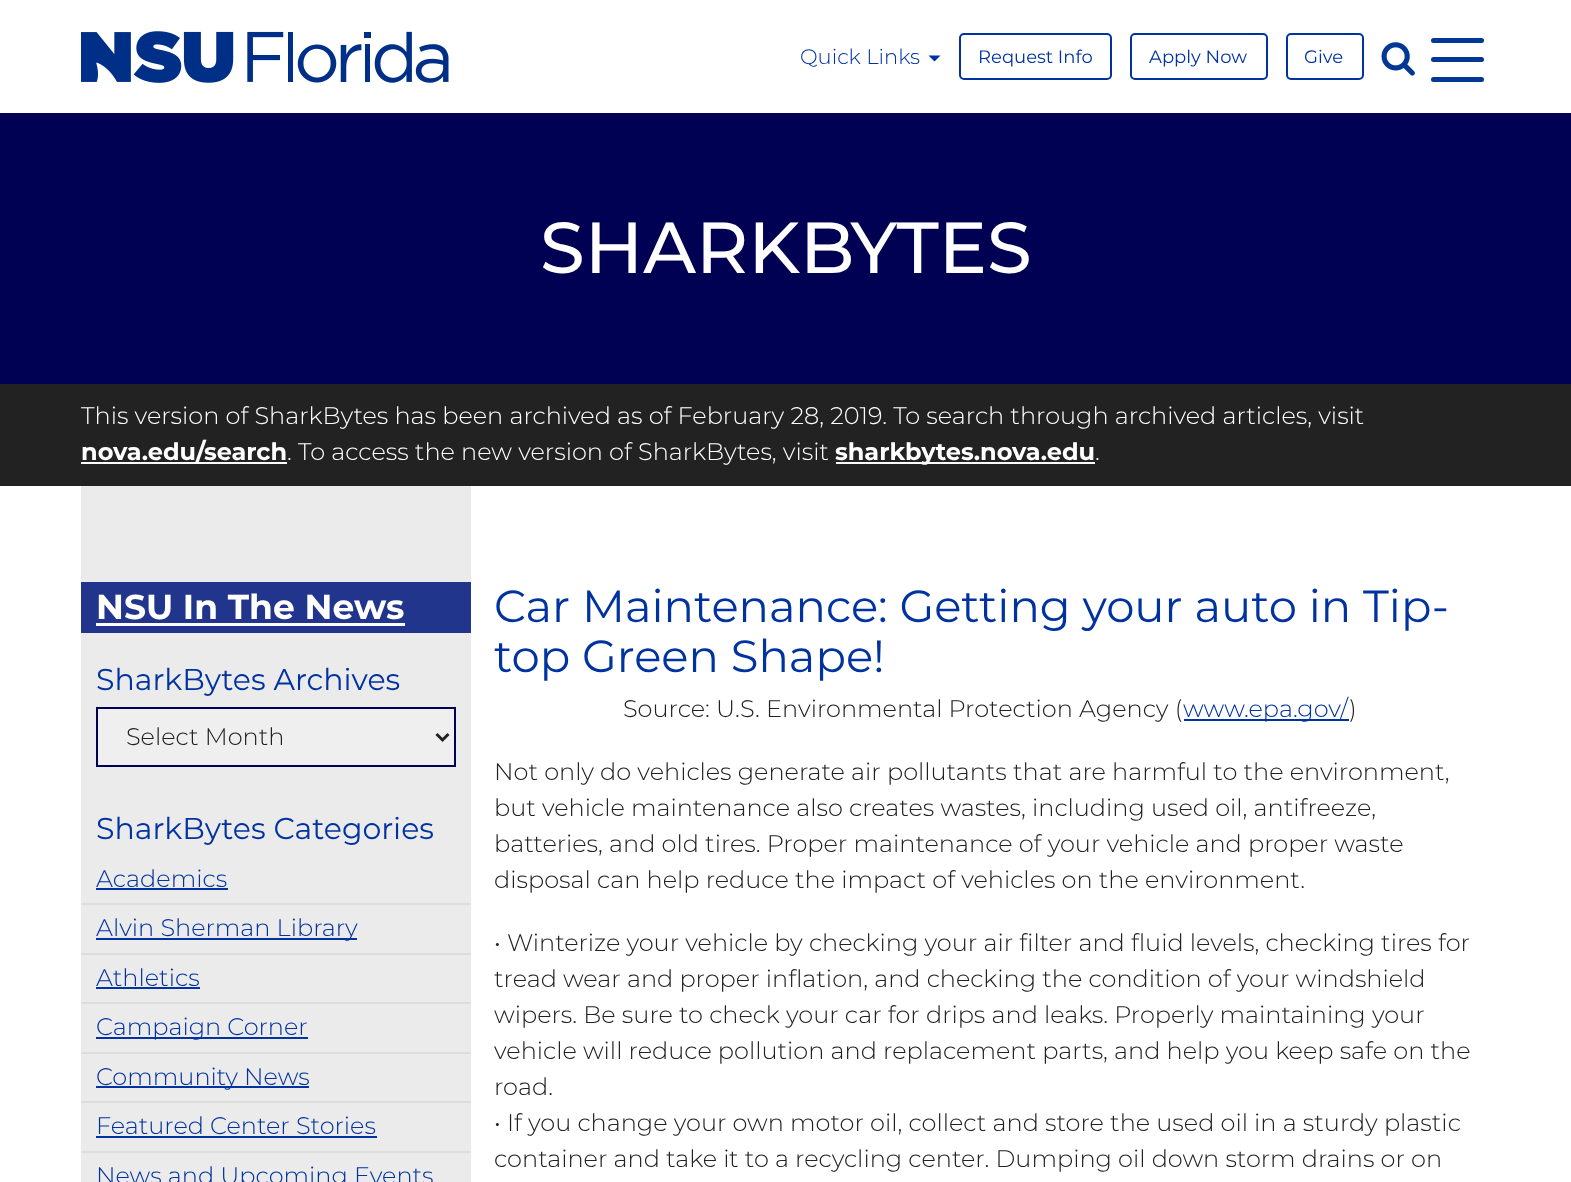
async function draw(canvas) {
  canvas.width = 1571;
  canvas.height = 1182;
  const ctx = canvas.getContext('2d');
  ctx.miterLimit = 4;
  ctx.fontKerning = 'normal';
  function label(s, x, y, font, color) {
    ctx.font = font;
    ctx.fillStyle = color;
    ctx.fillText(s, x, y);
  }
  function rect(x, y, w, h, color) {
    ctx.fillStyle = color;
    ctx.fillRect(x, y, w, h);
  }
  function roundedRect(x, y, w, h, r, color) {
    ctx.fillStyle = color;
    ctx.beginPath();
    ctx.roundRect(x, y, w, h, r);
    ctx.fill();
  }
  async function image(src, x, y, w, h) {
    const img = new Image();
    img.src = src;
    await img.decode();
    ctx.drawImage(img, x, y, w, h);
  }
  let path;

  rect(0, 0, 1571, 1182, '#fff');
  await image('assets/img1.png', 81, 31, 368, 52);
  label('Quick Links', 800, 64, '300 21px Montserrat', '#0032a0');
  path = new Path2D('M928.5 55.5H940.5L934.5 61.5Z');
  ctx.fill(path);
  ctx.beginPath();
  ctx.roundRect(960, 34, 151, 45, 4);
  ctx.strokeStyle = '#0032a0';
  ctx.lineWidth = 2;
  ctx.stroke();
  label('Request Info', 978, 63, '18px Montserrat', '#0032a0');
  ctx.beginPath();
  ctx.roundRect(1131, 34, 136, 45, 4);
  ctx.stroke();
  label('Apply Now', 1149, 63, '18px Montserrat', '#0032a0');
  ctx.beginPath();
  ctx.roundRect(1287, 34, 76, 45, 4);
  ctx.stroke();
  label('Give', 1304, 63, '18px Montserrat', '#0032a0');
  await image('assets/img2.png', 1381, 42, 34, 34);
  roundedRect(1431, 38, 53, 5, 2.5, '#003893');
  roundedRect(1431, 57, 53, 5, 2.5, '#003893');
  roundedRect(1431, 77, 53, 5, 2.5, '#003893');
  rect(0, 113, 1571, 271, '#010154');
  label('SHARKBYTES', 540, 273, '500 72px Montserrat', '#fff');
  rect(0, 384, 1571, 102, '#222');
  label('This version of SharkBytes has been archived as of February 28, 2019. To search through archived articles, visit', 81, 424, '300 24px Montserrat', '#fff');
  rect(81, 462, 206, 2, '#fff');
  label('nova.edu/search', 81, 460, 'bold 24px Montserrat', '#fff');
  label('. To access the new version of SharkBytes, visit', 287, 460, '300 24px Montserrat', '#fff');
  rect(836, 462, 259, 2, '#fff');
  label('sharkbytes.nova.edu', 835, 460, 'bold 24px Montserrat', '#fff');
  label('.', 1095, 460, '300 24px Montserrat', '#fff');
  rect(81, 486, 390, 696, '#ebebeb');
  rect(81, 582, 390, 51, '#22358c');
  label('NSU In The News', 96, 619, 'bold 34.5px Montserrat', '#fff');
  rect(96, 623, 309, 3, '#fff');
  label('SharkBytes Archives', 96, 690, '30px Montserrat', '#0032a0');
  ctx.fillStyle = '#efefef';
  ctx.beginPath();
  ctx.rect(97, 708, 358, 58);
  ctx.fill();
  ctx.strokeStyle = '#010154';
  ctx.stroke();
  path = new Path2D('M436.5 734L442.5 740L448.5 734');
  ctx.strokeStyle = '#202121';
  ctx.lineWidth = 3;
  ctx.stroke(path);
  label('Select Month', 126, 745, '300 24px Montserrat', '#202121');
  label('SharkBytes Categories', 96, 839, '30px Montserrat', '#0032a0');
  rect(81, 903, 390, 2, '#ddd');
  label('Academics', 96, 887, '300 24px Montserrat', '#0032a0');
  rect(96, 888, 132, 2, '#0032a0');
  rect(81, 953, 390, 2, '#ddd');
  rect(96, 938, 261, 2, '#0032a0');
  label('Alvin Sherman Library', 96, 936, '300 24px Montserrat', '#0032a0');
  rect(81, 1002, 390, 2, '#ddd');
  label('Athletics', 96, 986, '300 24px Montserrat', '#0032a0');
  rect(96, 987, 104, 2, '#0032a0');
  rect(81, 1052, 390, 2, '#ddd');
  rect(96, 1037, 212, 2, '#0032a0');
  label('Campaign Corner', 96, 1035, '300 24px Montserrat', '#0032a0');
  rect(81, 1101, 390, 2, '#ddd');
  rect(96, 1086, 213, 2, '#0032a0');
  label('Community News', 96, 1085, '300 24px Montserrat', '#0032a0');
  rect(81, 1151, 390, 2, '#ddd');
  label('Featured Center Stories', 96, 1134, '300 24px Montserrat', '#0032a0');
  rect(96, 1136, 281, 2, '#0032a0');
  label('News and Upcoming Events', 96, 1184, '300 24px Montserrat', '#0032a0');
  label('Car Maintenance: Getting your auto in Tip-', 494, 622, '45px Montserrat', '#0032a0');
  label('top Green Shape!', 494, 672, '45px Montserrat', '#0032a0');
  label('Source: U.S. Environmental Protection Agency (', 623, 717, '300 24px Montserrat', '#202121');
  rect(1184, 719, 165, 2, '#0032a0');
  label('www.epa.gov/', 1183, 717, '300 24px Montserrat', '#0032a0');
  label(')', 1349, 717, '300 24px Montserrat', '#202121');
  label('Not only do vehicles generate air pollutants that are harmful to the environment,', 494, 780, '300 24px Montserrat', '#202121');
  label('but vehicle maintenance also creates wastes, including used oil, antifreeze,', 494, 816, '300 24px Montserrat', '#202121');
  label('batteries, and old tires. Proper maintenance of your vehicle and proper waste', 494, 852, '300 24px Montserrat', '#202121');
  label('disposal can help reduce the impact of vehicles on the environment.', 494, 888, '300 24px Montserrat', '#202121');
  label('• Winterize your vehicle by checking your air filter and fluid levels, checking tires for', 494, 951, '300 24px Montserrat', '#202121');
  label('tread wear and proper inflation, and checking the condition of your windshield', 494, 987, '300 24px Montserrat', '#202121');
  label('wipers. Be sure to check your car for drips and leaks. Properly maintaining your', 494, 1023, '300 24px Montserrat', '#202121');
  label('vehicle will reduce pollution and replacement parts, and help you keep safe on the', 494, 1059, '300 24px Montserrat', '#202121');
  label('road.', 494, 1095, '300 24px Montserrat', '#202121');
  label('• If you change your own motor oil, collect and store the used oil in a sturdy plastic', 494, 1131, '300 24px Montserrat', '#202121');
  label('container and take it to a recycling center. Dumping oil down storm drains or on', 494, 1167, '300 24px Montserrat', '#202121');
}

draw(document.querySelector('canvas'));
